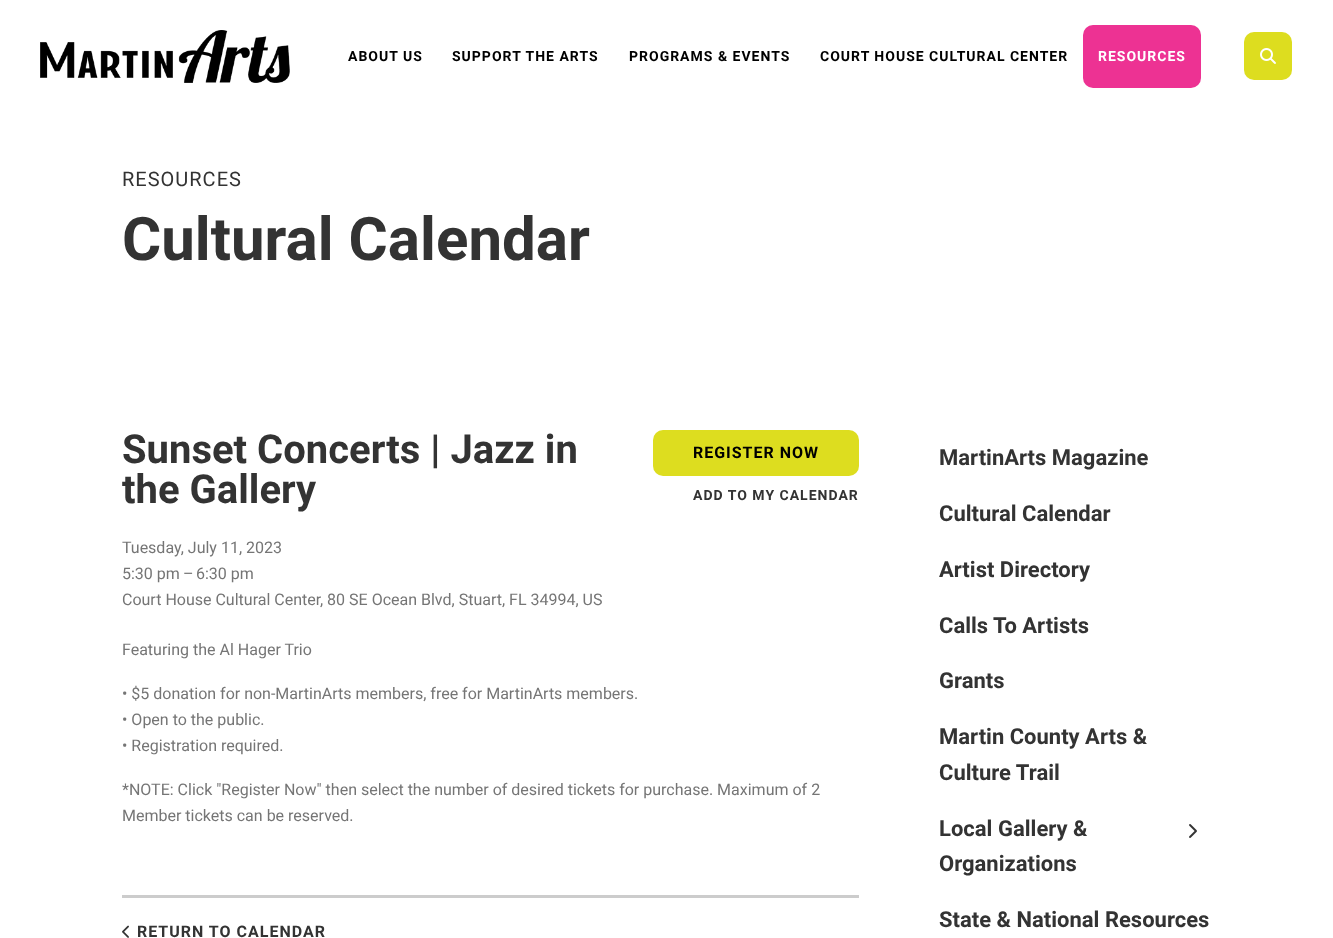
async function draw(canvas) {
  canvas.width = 1333;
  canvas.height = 938;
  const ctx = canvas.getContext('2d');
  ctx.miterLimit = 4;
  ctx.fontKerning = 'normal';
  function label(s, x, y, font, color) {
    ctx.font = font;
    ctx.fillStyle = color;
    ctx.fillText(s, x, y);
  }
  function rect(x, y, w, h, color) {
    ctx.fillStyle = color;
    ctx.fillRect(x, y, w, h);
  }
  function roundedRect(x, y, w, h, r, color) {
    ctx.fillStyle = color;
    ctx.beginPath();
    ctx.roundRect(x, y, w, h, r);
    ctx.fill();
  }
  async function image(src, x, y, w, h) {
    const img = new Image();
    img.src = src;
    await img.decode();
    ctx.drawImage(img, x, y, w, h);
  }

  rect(0, 0, 1333, 938, '#fff');
  await image('assets/img1.png', 40, 30, 250, 53);
  ctx.letterSpacing = '1px';
  label('ABOUT US', 348, 61, 'bold 14px Roboto', '#000');
  label('SUPPORT THE ARTS', 452, 61, 'bold 14px Roboto', '#000');
  label('PROGRAMS & EVENTS', 629, 61, 'bold 14px Roboto', '#000');
  label('COURT HOUSE CULTURAL CENTER', 820, 61, 'bold 14px Roboto', '#000');
  roundedRect(1083, 25, 118, 63, 10, '#ed3293');
  label('RESOURCES', 1098, 61, 'bold 14px Roboto', '#fff');
  roundedRect(1244, 32, 48, 48, 10, '#dddd1f');
  await image('assets/img2.png', 1260, 48, 16, 16);
  label('RESOURCES', 122, 186, '20px Roboto', '#333');
  ctx.letterSpacing = '0px';
  label('Cultural Calendar', 122, 260, 'bold 60px Roboto', '#333');
  rect(122, 895, 737, 3, '#ccc');
  label('Sunset Concerts | Jazz in', 122, 463, 'bold 40px Roboto', '#333');
  label('the Gallery', 122, 503, 'bold 40px Roboto', '#333');
  label('Tuesday, July 11, 2023', 122, 553, '16px Roboto', '#757575');
  label('5:30 pm', 122, 579, '16px Roboto', '#757575');
  label('–', 183, 579, '16px Roboto', '#757575');
  label('6:30 pm', 196, 579, '16px Roboto', '#757575');
  label('Court House Cultural Center', 122, 605, '16px Roboto', '#757575');
  label(', 80 SE Ocean Blvd, Stuart, FL 34994, US', 320, 605, '16px Roboto', '#757575');
  roundedRect(653, 430, 206, 46, 10, '#dddd1f');
  ctx.letterSpacing = '1px';
  label('REGISTER NOW', 693, 458, 'bold 16px Roboto', '#000');
  label('ADD TO MY CALENDAR', 693, 500, 'bold 14px Roboto', '#333');
  ctx.letterSpacing = '0px';
  label('Featuring the Al Hager Trio', 122, 655, '16px Roboto', '#757575');
  label('• $5 donation for non-MartinArts members, free for MartinArts members.', 122, 699, '16px Roboto', '#757575');
  label('• Open to the public.', 122, 725, '16px Roboto', '#757575');
  label('• Registration required.', 122, 751, '16px Roboto', '#757575');
  label('*NOTE: Click "Register Now" then select the number of desired tickets for purchase. Maximum of 2', 122, 795, '16px Roboto', '#757575');
  label('Member tickets can be reserved.', 122, 821, '16px Roboto', '#757575');
  await image('assets/img3.png', 122, 925, 7, 13);
  ctx.letterSpacing = '1px';
  label('RETURN TO CALENDAR', 137, 937, 'bold 16px Roboto', '#333');
  ctx.letterSpacing = '0px';
  label('MartinArts Magazine', 939, 465, 'bold 22px Roboto', '#333');
  label('Cultural Calendar', 939, 521, 'bold 22px Roboto', '#333');
  label('Artist Directory', 939, 577, 'bold 22px Roboto', '#333');
  label('Calls To Artists', 939, 633, 'bold 22px Roboto', '#333');
  label('Grants', 939, 688, 'bold 22px Roboto', '#333');
  label('Martin County Arts &', 939, 744, 'bold 22px Roboto', '#333');
  label('Culture Trail', 939, 780, 'bold 22px Roboto', '#333');
  label('Local Gallery &', 939, 836, 'bold 22px Roboto', '#333');
  await image('assets/img4.png', 1189, 824, 8, 14);
  label('Organizations', 939, 871, 'bold 22px Roboto', '#333');
  label('State & National Resources', 939, 927, 'bold 22px Roboto', '#333');
}

draw(document.querySelector('canvas'));
